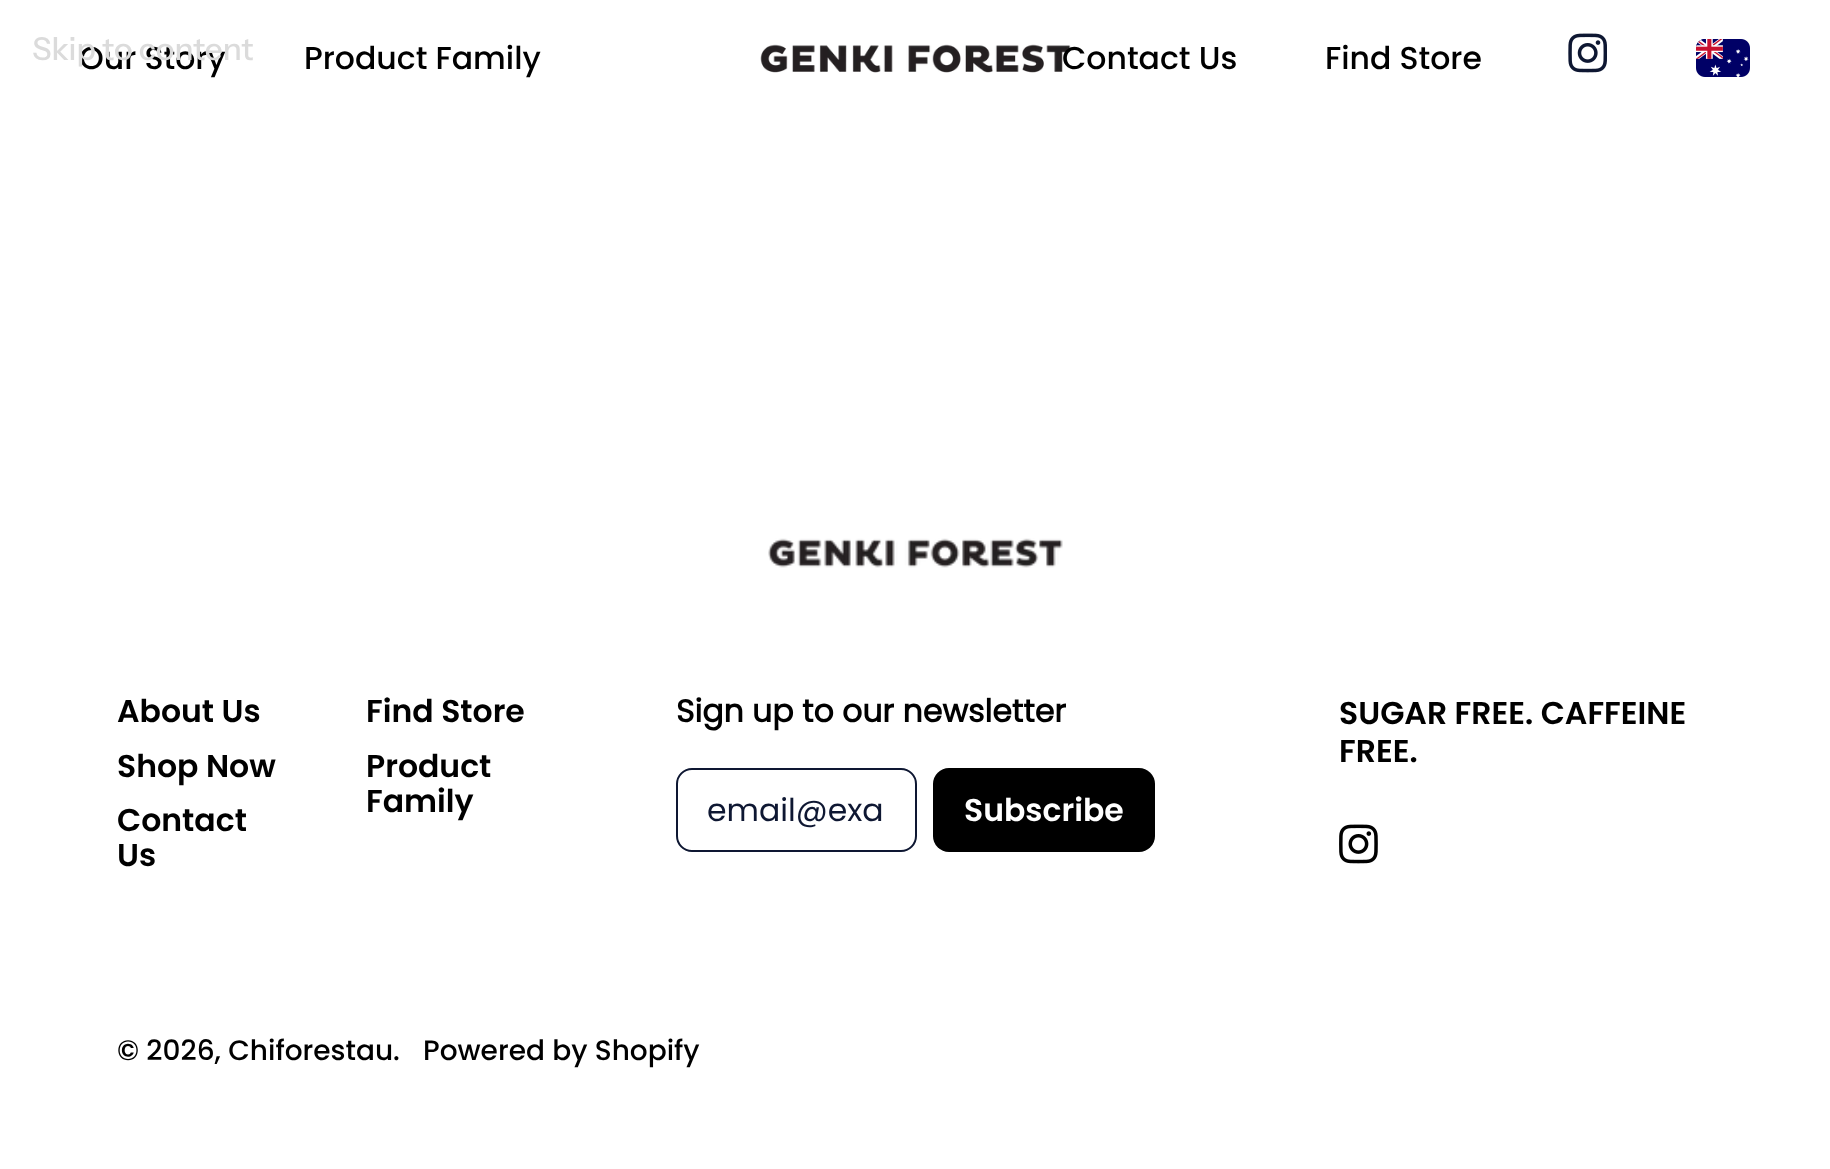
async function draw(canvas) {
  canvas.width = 1830;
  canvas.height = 1169;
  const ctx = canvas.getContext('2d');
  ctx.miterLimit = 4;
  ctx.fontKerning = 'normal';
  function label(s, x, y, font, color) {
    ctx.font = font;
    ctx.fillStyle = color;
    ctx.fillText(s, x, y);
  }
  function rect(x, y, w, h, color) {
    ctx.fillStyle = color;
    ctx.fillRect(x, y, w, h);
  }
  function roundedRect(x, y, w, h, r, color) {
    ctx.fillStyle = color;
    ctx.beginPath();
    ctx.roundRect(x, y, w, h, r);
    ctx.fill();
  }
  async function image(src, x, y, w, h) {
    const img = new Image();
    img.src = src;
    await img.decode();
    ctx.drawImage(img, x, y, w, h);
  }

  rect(0, 0, 1830, 1169, '#fff');
  label('Our Story', 79, 69, '500 31.5px Poppins', '#000');
  label('Skip to content', 32, 60, '500 31.5px Instrument Sans', '#dbdbdb');
  label('Product Family', 304, 69, '500 31.5px Poppins', '#000');
  await image('assets/img1.png', 760, 44, 311, 29);
  label('Contact Us', 1062, 69, '500 31.5px Poppins', '#000');
  label('Find Store', 1325, 69, '500 31.5px Poppins', '#000');
  await image('assets/img2.png', 1568, 33, 39, 40);
  await image('assets/img3.png', 1696, 39, 54, 38);
  await image('assets/img4.png', 768, 538, 295, 30);
  label('About Us', 117, 722, '600 31.5px Poppins', '#000');
  label('Shop Now', 117, 777, '600 31.5px Poppins', '#000');
  label('Contact', 117, 831, '600 31.5px Poppins', '#000');
  label('Us', 117, 866, '600 31.5px Poppins', '#000');
  label('Find Store', 366, 722, '600 31.5px Poppins', '#000');
  label('Product', 366, 777, '600 31.5px Poppins', '#000');
  label('Family', 366, 812, '600 31.5px Poppins', '#000');
  label('Sign up to our newsletter', 676, 722, 'bold 31.5px Poppins', '#000');
  ctx.beginPath();
  ctx.roundRect(677, 769, 239, 82, 15);
  ctx.strokeStyle = '#0e1732';
  ctx.lineWidth = 2;
  ctx.stroke();
  label('email@exa', 707, 821, '31.5px Poppins', '#0e1732');
  roundedRect(933, 768, 222, 84, 16, '#000');
  label('Subscribe', 964, 821, '600 31.5px Poppins', '#fff');
  label('SUGAR FREE. CAFFEINE', 1339, 724, '600 31.5px Poppins', '#000');
  label('FREE.', 1339, 762, '600 31.5px Poppins', '#000');
  await image('assets/img5.png', 1339, 824, 39, 40);
  label('© 2026, Chiforestau.', 117, 1060, '500 28px Poppins', '#000');
  label('Powered by Shopify', 423, 1060, '500 28px Poppins', '#000');
}

draw(document.querySelector('canvas'));
